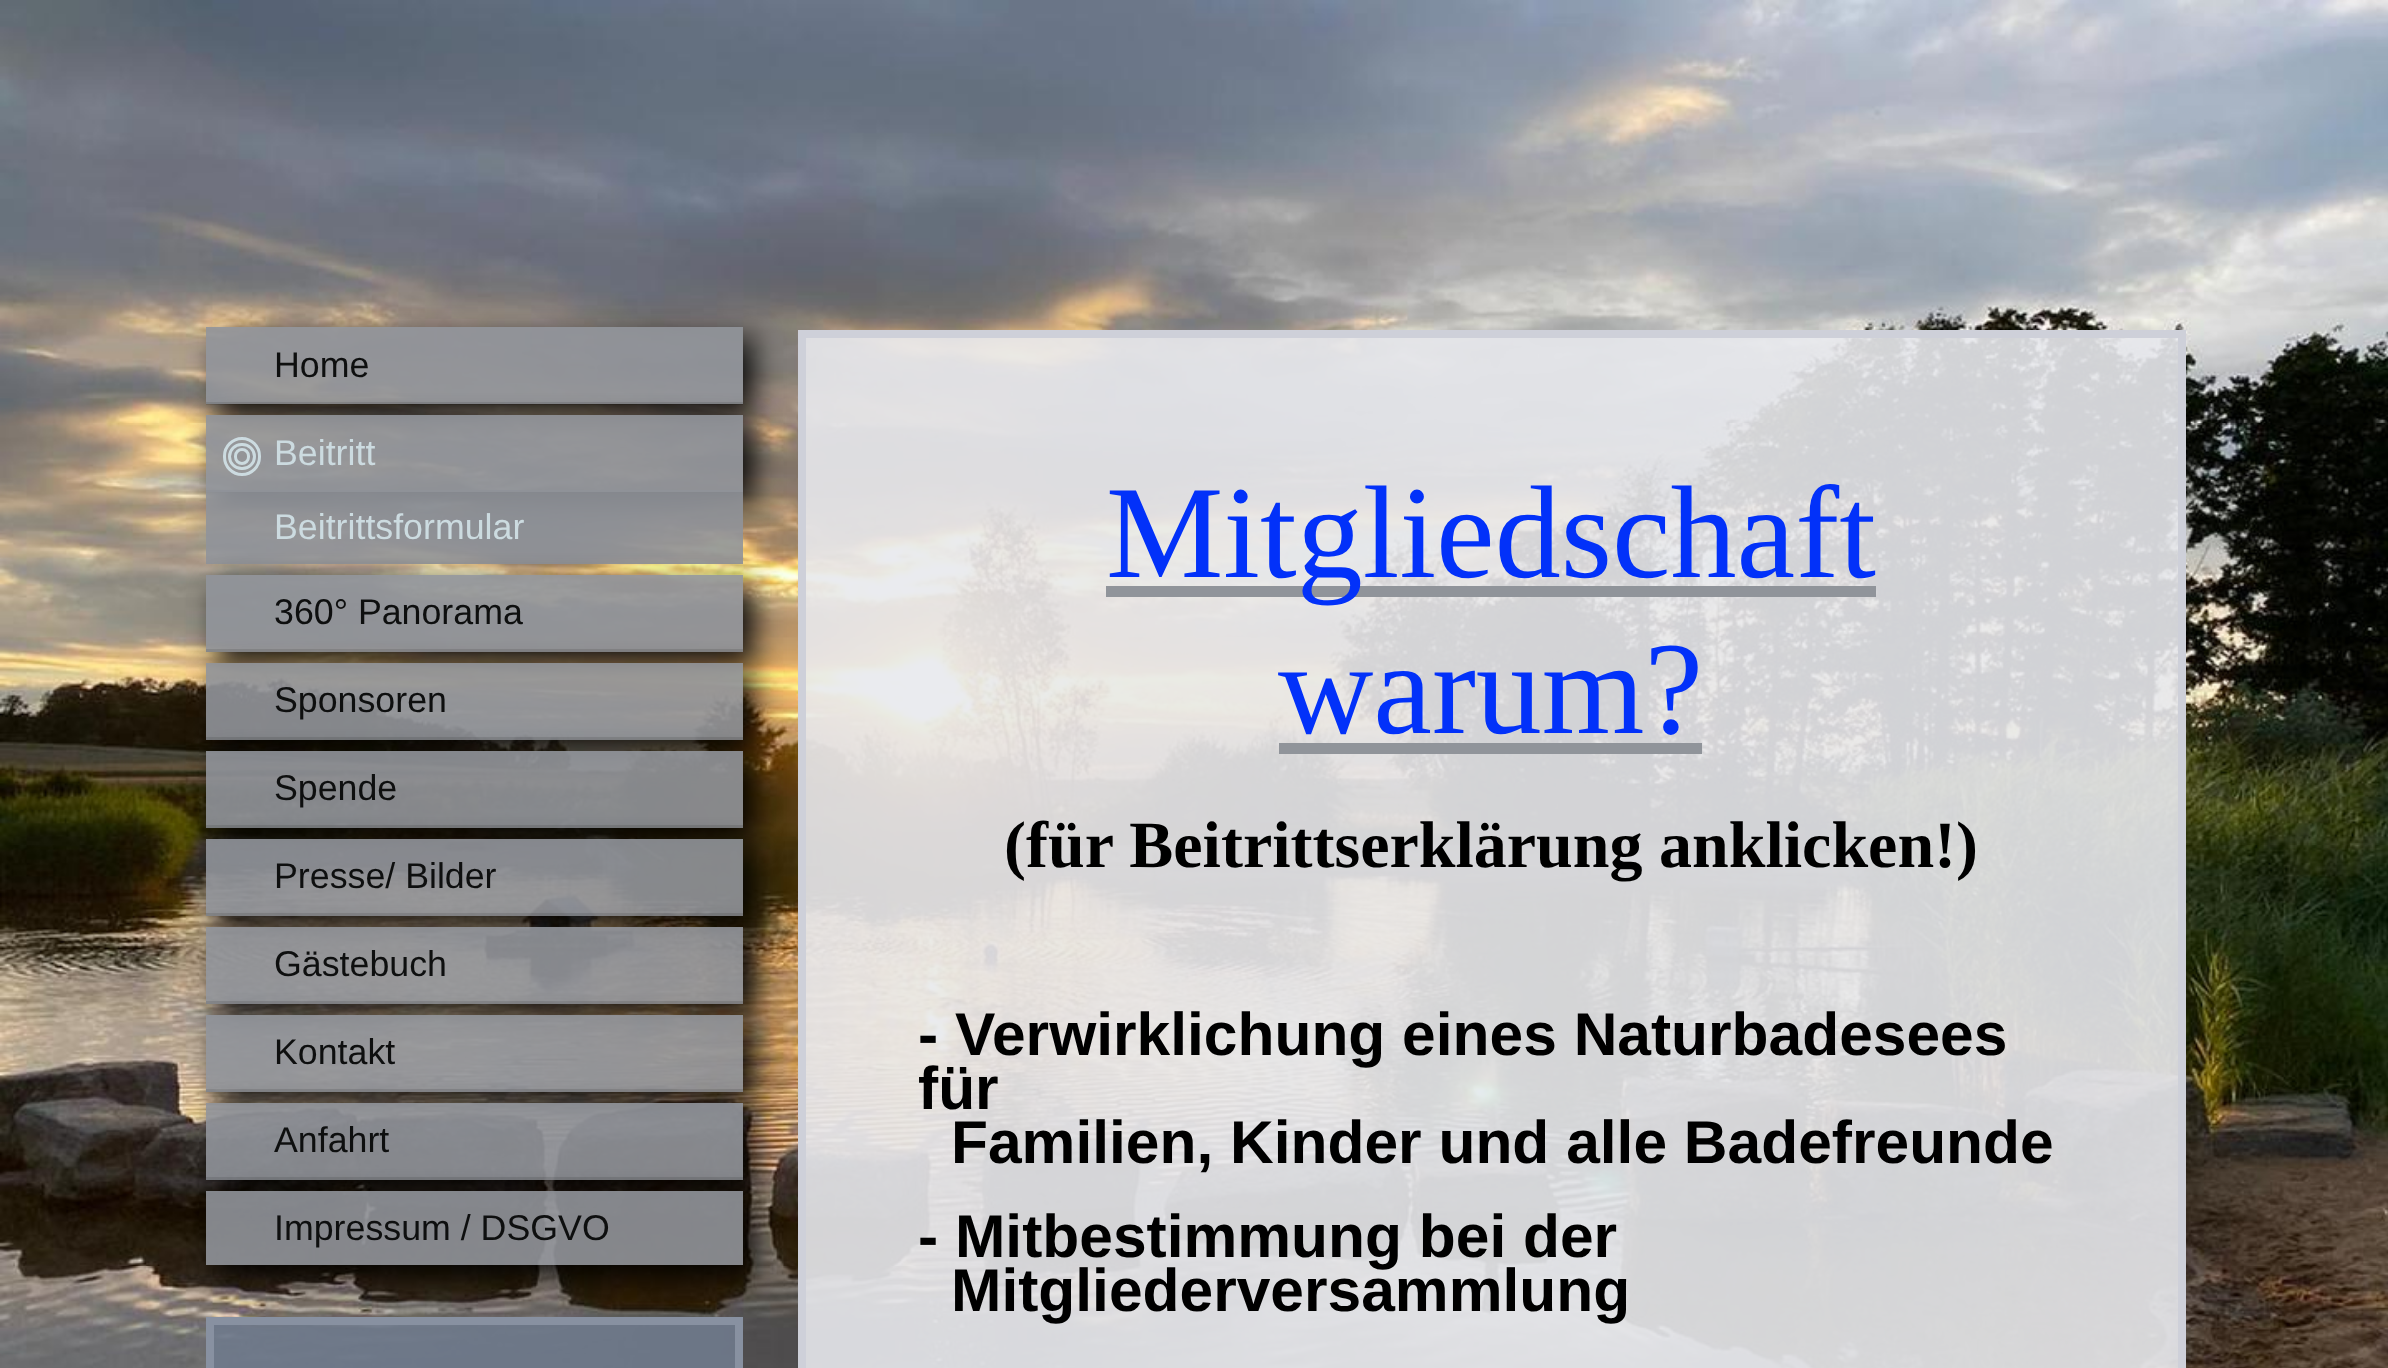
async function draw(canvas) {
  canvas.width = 2388;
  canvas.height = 1368;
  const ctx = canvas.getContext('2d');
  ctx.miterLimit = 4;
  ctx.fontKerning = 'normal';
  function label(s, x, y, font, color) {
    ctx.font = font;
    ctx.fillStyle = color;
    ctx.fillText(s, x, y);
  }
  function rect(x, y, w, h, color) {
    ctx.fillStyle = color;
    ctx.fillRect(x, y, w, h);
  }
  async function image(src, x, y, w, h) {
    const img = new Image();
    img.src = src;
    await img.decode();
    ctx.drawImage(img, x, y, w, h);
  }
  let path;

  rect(0, 0, 2388, 1368, '#fff');
  await image('assets/img1.png', 0, 0, 2388, 1368);
  ctx.save();
  path = new Path2D('M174 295H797V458H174ZM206 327H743V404H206Z');
  ctx.clip(path, 'evenodd');
  ctx.fillStyle = '#000000e6';
  ctx.filter = 'blur(14px)';
  ctx.beginPath();
  ctx.rect(217, 338, 537, 77);
  ctx.fill();
  ctx.filter = 'none';
  ctx.restore();
  rect(206, 327, 537, 77, '#90949ae6');
  rect(206, 402, 537, 3, '#0000001a');
  label('Home', 274, 377, '35.75px Liberation Sans', '#0e0f0f');
  ctx.save();
  path = new Path2D('M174 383H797V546H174ZM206 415H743V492H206Z');
  ctx.clip(path, 'evenodd');
  ctx.fillStyle = '#000000e6';
  ctx.filter = 'blur(14px)';
  ctx.beginPath();
  ctx.rect(217, 426, 537, 77);
  ctx.fill();
  ctx.filter = 'none';
  ctx.restore();
  rect(206, 415, 537, 77, '#90949ae6');
  rect(206, 490, 537, 3, '#0000001a');
  ctx.beginPath();
  ctx.roundRect(224.5, 438.5, 35, 36, 17.5);
  ctx.strokeStyle = '#ccdbe0';
  ctx.lineWidth = 3;
  ctx.stroke();
  ctx.beginPath();
  ctx.roundRect(229.5, 444.5, 25, 24, 12);
  ctx.stroke();
  label('Beitritt', 274, 465, '35.75px Liberation Sans', '#ccdbe0');
  ctx.beginPath();
  ctx.roundRect(235.5, 449.5, 13, 14, 6.5);
  ctx.stroke();
  rect(206, 490, 537, 74, '#90949ae6');
  label('Beitrittsformular', 274, 539, '35.75px Liberation Sans', '#ccdbe0');
  ctx.save();
  path = new Path2D('M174 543H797V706H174ZM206 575H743V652H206Z');
  ctx.clip(path, 'evenodd');
  ctx.fillStyle = '#000000e6';
  ctx.filter = 'blur(14px)';
  ctx.beginPath();
  ctx.rect(217, 586, 537, 77);
  ctx.fill();
  ctx.filter = 'none';
  ctx.restore();
  rect(206, 575, 537, 77, '#90949ae6');
  rect(206, 649, 537, 3, '#0000001a');
  label('360° Panorama', 274, 624, '35.75px Liberation Sans', '#0e0f0f');
  ctx.save();
  path = new Path2D('M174 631H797V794H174ZM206 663H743V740H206Z');
  ctx.clip(path, 'evenodd');
  ctx.fillStyle = '#000000e6';
  ctx.filter = 'blur(14px)';
  ctx.beginPath();
  ctx.rect(217, 674, 537, 77);
  ctx.fill();
  ctx.filter = 'none';
  ctx.restore();
  rect(206, 663, 537, 77, '#90949ae6');
  rect(206, 737, 537, 3, '#0000001a');
  label('Sponsoren', 274, 712, '35.75px Liberation Sans', '#0e0f0f');
  ctx.save();
  path = new Path2D('M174 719H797V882H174ZM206 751H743V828H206Z');
  ctx.clip(path, 'evenodd');
  ctx.fillStyle = '#000000e6';
  ctx.filter = 'blur(14px)';
  ctx.beginPath();
  ctx.rect(217, 762, 537, 77);
  ctx.fill();
  ctx.filter = 'none';
  ctx.restore();
  rect(206, 751, 537, 77, '#90949ae6');
  rect(206, 825, 537, 3, '#0000001a');
  label('Spende', 274, 800, '35.75px Liberation Sans', '#0e0f0f');
  ctx.save();
  path = new Path2D('M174 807H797V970H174ZM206 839H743V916H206Z');
  ctx.clip(path, 'evenodd');
  ctx.fillStyle = '#000000e6';
  ctx.filter = 'blur(14px)';
  ctx.beginPath();
  ctx.rect(217, 850, 537, 77);
  ctx.fill();
  ctx.filter = 'none';
  ctx.restore();
  rect(206, 839, 537, 77, '#90949ae6');
  rect(206, 913, 537, 3, '#0000001a');
  label('Presse/ Bilder', 274, 888, '35.75px Liberation Sans', '#0e0f0f');
  ctx.save();
  path = new Path2D('M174 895H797V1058H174ZM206 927H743V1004H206Z');
  ctx.clip(path, 'evenodd');
  ctx.fillStyle = '#000000e6';
  ctx.filter = 'blur(14px)';
  ctx.beginPath();
  ctx.rect(217, 938, 537, 77);
  ctx.fill();
  ctx.filter = 'none';
  ctx.restore();
  rect(206, 927, 537, 77, '#90949ae6');
  rect(206, 1001, 537, 3, '#0000001a');
  label('Gästebuch', 274, 976, '35.75px Liberation Sans', '#0e0f0f');
  ctx.save();
  path = new Path2D('M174 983H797V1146H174ZM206 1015H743V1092H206Z');
  ctx.clip(path, 'evenodd');
  ctx.fillStyle = '#000000e6';
  ctx.filter = 'blur(14px)';
  ctx.beginPath();
  ctx.rect(217, 1026, 537, 77);
  ctx.fill();
  ctx.filter = 'none';
  ctx.restore();
  rect(206, 1015, 537, 77, '#90949ae6');
  rect(206, 1089, 537, 3, '#0000001a');
  label('Kontakt', 274, 1064, '35.75px Liberation Sans', '#0e0f0f');
  ctx.save();
  path = new Path2D('M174 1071H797V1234H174ZM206 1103H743V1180H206Z');
  ctx.clip(path, 'evenodd');
  ctx.fillStyle = '#000000e6';
  ctx.filter = 'blur(14px)';
  ctx.beginPath();
  ctx.rect(217, 1114, 537, 77);
  ctx.fill();
  ctx.filter = 'none';
  ctx.restore();
  rect(206, 1103, 537, 77, '#90949ae6');
  rect(206, 1177, 537, 3, '#0000001a');
  label('Anfahrt', 274, 1152, '35.75px Liberation Sans', '#0e0f0f');
  ctx.fillStyle = '#6f7a8ce6';
  ctx.beginPath();
  ctx.rect(210, 1321, 529, 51);
  ctx.fill();
  ctx.strokeStyle = '#8891a1';
  ctx.lineWidth = 8;
  ctx.stroke();
  ctx.save();
  path = new Path2D('M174 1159H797V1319H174ZM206 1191H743V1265H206Z');
  ctx.clip(path, 'evenodd');
  ctx.fillStyle = '#000000e6';
  ctx.filter = 'blur(14px)';
  ctx.beginPath();
  ctx.rect(217, 1202, 537, 74);
  ctx.fill();
  ctx.filter = 'none';
  ctx.restore();
  rect(206, 1191, 537, 74, '#90949ae6');
  label('Impressum / DSGVO', 274, 1240, '35.75px Liberation Sans', '#0e0f0f');
  ctx.fillStyle = '#e8e9ede6';
  ctx.beginPath();
  ctx.rect(802, 334, 1380, 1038);
  ctx.fill();
  ctx.strokeStyle = '#ced0d9';
  ctx.stroke();
  rect(1106, 586, 770, 11, '#90949a');
  label('Mitgliedschaft', 1106, 577, '132px Liberation Serif', '#0231f9');
  label('warum?', 1278, 733, '132px Liberation Serif', '#0231f9');
  rect(1279, 743, 423, 11, '#90949a');
  label('(für Beitrittserklärung anklicken!)', 1004, 867, 'bold 66px Liberation Serif', '#000');
  label('- Verwirklichung eines Naturbadesees', 918, 1055, 'bold 60.5px Liberation Sans', '#000');
  label('für', 918, 1109, 'bold 60.5px Liberation Sans', '#000');
  label('Familien, Kinder und alle Badefreunde', 951, 1163, 'bold 60.5px Liberation Sans', '#000');
  label('- Mitbestimmung bei der', 918, 1257, 'bold 60.5px Liberation Sans', '#000');
  label('Mitgliederversammlung', 951, 1311, 'bold 60.5px Liberation Sans', '#000');
}

draw(document.querySelector('canvas'));
